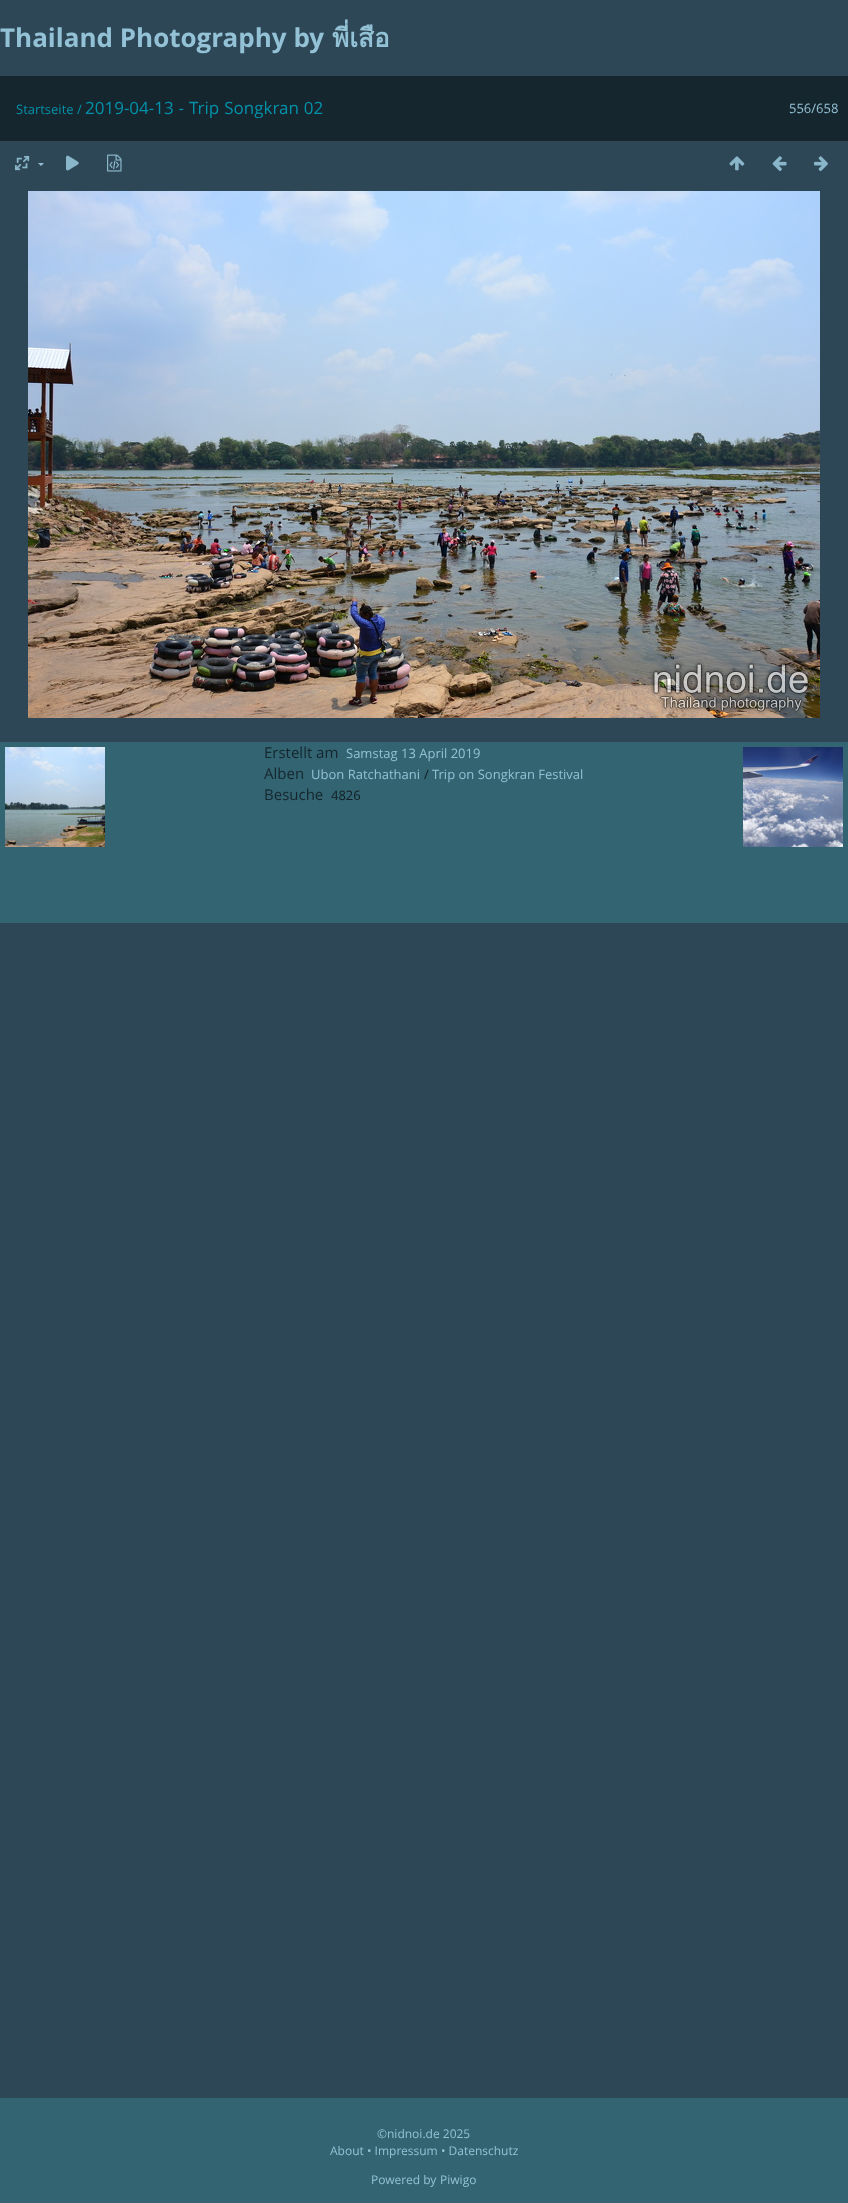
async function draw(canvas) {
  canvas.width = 848;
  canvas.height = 2203;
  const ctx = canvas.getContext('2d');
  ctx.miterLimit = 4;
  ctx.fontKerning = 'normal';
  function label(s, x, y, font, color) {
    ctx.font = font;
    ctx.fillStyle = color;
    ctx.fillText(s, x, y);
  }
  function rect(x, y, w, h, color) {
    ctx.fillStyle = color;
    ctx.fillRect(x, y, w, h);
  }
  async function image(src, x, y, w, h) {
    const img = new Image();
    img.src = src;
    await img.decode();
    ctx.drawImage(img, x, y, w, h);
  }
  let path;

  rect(0, 0, 848, 2203, '#2e4756');
  label('Thailand Photography by', 0, 47, 'bold 26px Open Sans', '#93c2d6');
  label('พี่เสือ', 332, 47, 'bold 26px Loma', '#93c2d6');
  rect(0, 76, 848, 65, '#16262e');
  label('Startseite /', 16, 114, '13px Open Sans', '#0391aa');
  ctx.wordSpacing = '0.5px';
  label('2019-04-13 - Trip Songkran 02', 85, 114, '17px Open Sans', '#0391aa');
  ctx.wordSpacing = '0px';
  label('556/658', 789, 113, '13px Open Sans', '#93c2d6');
  await image('assets/img1.png', 15, 155, 15, 16);
  path = new Path2D('M38 163H44L41 166Z');
  ctx.fill(path);
  await image('assets/img2.png', 66, 155, 13, 16);
  await image('assets/img3.png', 107, 154, 15, 18);
  await image('assets/img4.png', 729, 156, 16, 15);
  await image('assets/img5.png', 772, 156, 15, 15);
  await image('assets/img6.png', 814, 156, 14, 15);
  await image('assets/img7.png', 28, 191, 792, 527);
  rect(0, 742, 848, 181, '#326471');
  label('Erstellt am', 264, 758, '15px Open Sans', '#16262e');
  label('Samstag 13 April 2019', 346, 758, '13px Open Sans', '#93c2d6');
  label('Alben', 264, 779, '15px Open Sans', '#16262e');
  label('Ubon Ratchathani', 311, 779, '13px Open Sans', '#93c2d6');
  label('/', 424, 779, '13px Open Sans', '#131d23');
  label('Trip on Songkran Festival', 432, 779, '13px Open Sans', '#93c2d6');
  label('Besuche', 264, 800, '15px Open Sans', '#16262e');
  label('4826', 331, 800, '13px Open Sans', '#131d23');
  await image('assets/img8.png', 5, 747, 100, 100);
  await image('assets/img9.png', 743, 747, 100, 100);
  rect(0, 2098, 848, 105, '#326471');
  label('©nidnoi.de 2025', 377, 2138, '12px Open Sans', '#93c2d6');
  label('About • Impressum • Datenschutz', 330, 2155, '12px Open Sans', '#93c2d6');
  label('Powered by', 371, 2184, '12px Open Sans', '#93c2d6');
  label('Piwigo', 440, 2184, '12px Open Sans', '#93c2d6');
}

draw(document.querySelector('canvas'));
